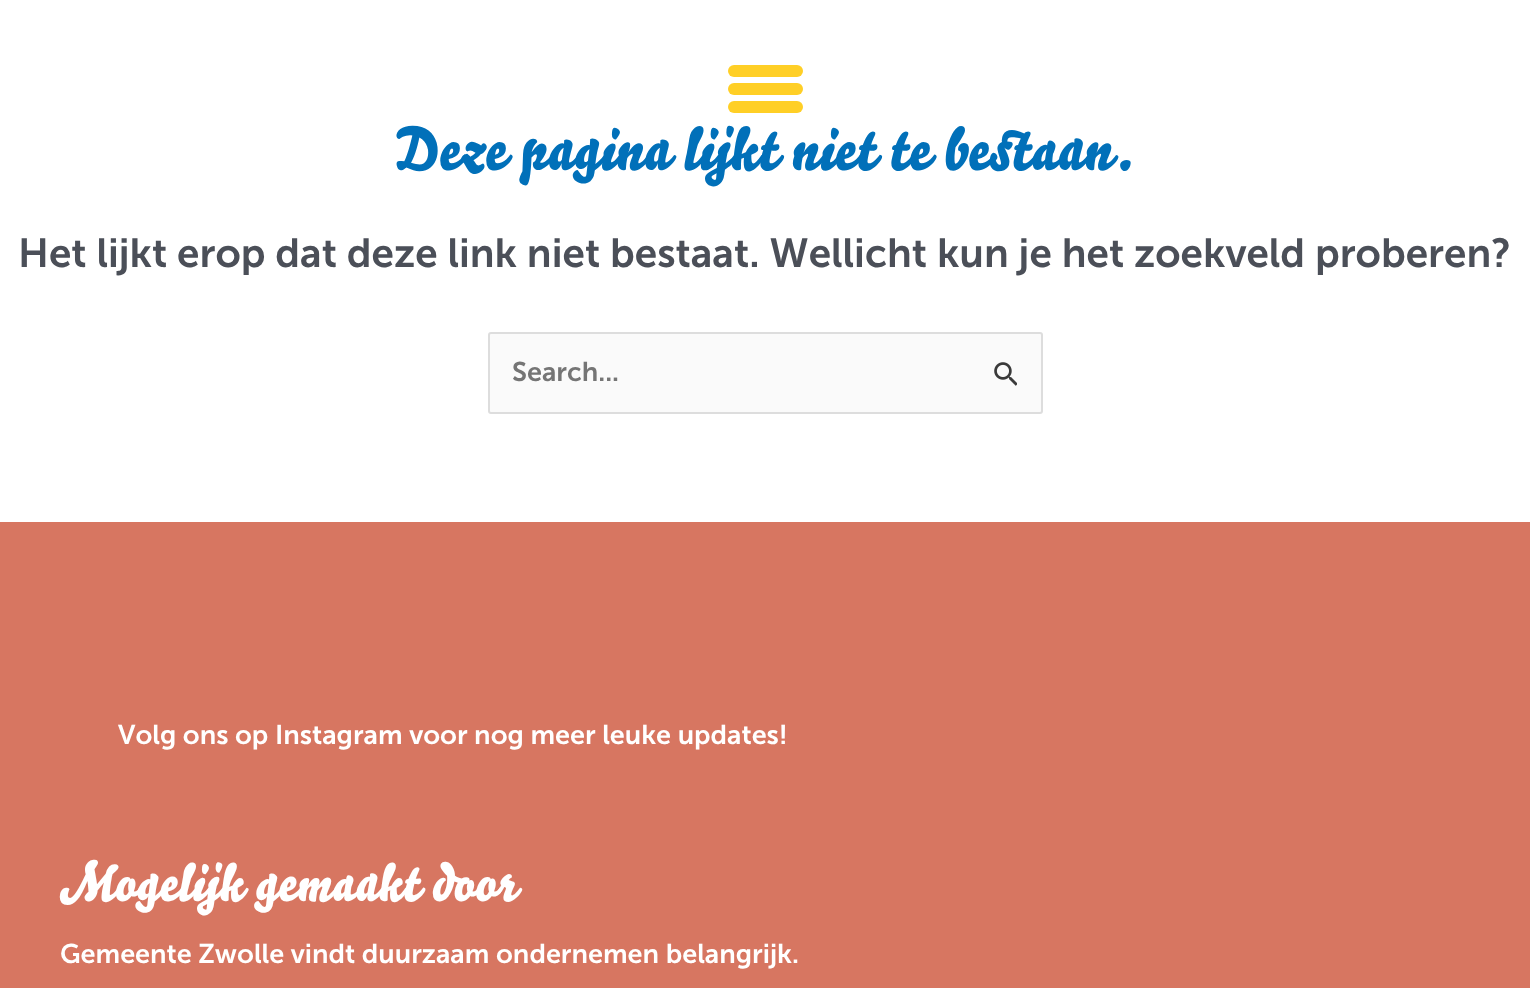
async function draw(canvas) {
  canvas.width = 1530;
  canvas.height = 988;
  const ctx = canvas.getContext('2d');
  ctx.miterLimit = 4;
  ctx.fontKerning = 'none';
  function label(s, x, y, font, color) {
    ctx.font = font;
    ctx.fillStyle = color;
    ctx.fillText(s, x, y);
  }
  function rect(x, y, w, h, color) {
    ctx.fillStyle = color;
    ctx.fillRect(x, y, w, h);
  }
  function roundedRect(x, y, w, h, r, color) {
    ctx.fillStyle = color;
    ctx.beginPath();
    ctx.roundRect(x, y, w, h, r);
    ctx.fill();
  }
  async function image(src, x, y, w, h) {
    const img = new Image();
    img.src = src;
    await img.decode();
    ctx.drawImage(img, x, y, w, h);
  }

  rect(0, 0, 1530, 988, '#fff');
  roundedRect(728, 83, 75, 12, 6, '#ffcf26');
  roundedRect(728, 65, 75, 12, 6, '#ffcf26');
  roundedRect(728, 101, 75, 12, 6, '#ffcf26');
  label('Deze pagina lijkt niet te bestaan.', 395, 170, '60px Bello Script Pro', '#0170b9');
  label('Het lijkt erop dat deze link niet bestaat. Wellicht kun je het zoekveld proberen?', 18, 267, '600 40.5px "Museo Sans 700"', '#4b4f58');
  ctx.fillStyle = '#fafafa';
  ctx.beginPath();
  ctx.roundRect(489, 333, 553, 80, 2);
  ctx.fill();
  ctx.strokeStyle = '#ddd';
  ctx.lineWidth = 2;
  ctx.stroke();
  label('Search...', 512, 381, '600 27px "Museo Sans 700"', '#757575');
  await image('assets/img1.png', 994, 362, 23, 24);
  rect(0, 522, 1530, 466, '#d77661');
  label('Volg ons op Instagram voor nog meer leuke updates!', 118, 744, '600 27px "Museo Sans 700"', '#fff');
  label('Mogelijk gemaakt door', 60, 901, '52.5px Bello Script Pro', '#fff');
  label('Gemeente Zwolle vindt duurzaam ondernemen belangrijk.', 60, 963, '600 27px "Museo Sans 700"', '#fff');
}

draw(document.querySelector('canvas'));
